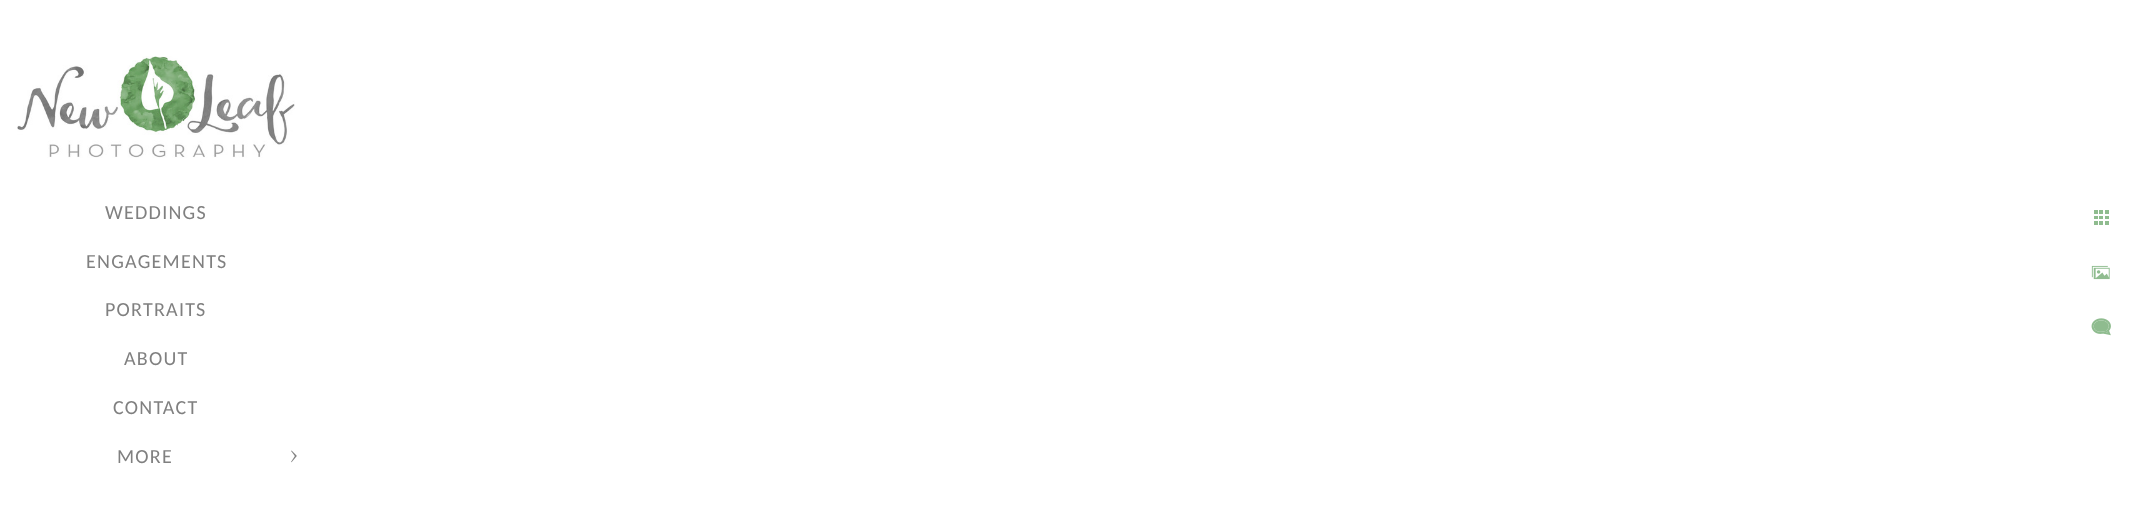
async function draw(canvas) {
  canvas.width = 2134;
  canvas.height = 520;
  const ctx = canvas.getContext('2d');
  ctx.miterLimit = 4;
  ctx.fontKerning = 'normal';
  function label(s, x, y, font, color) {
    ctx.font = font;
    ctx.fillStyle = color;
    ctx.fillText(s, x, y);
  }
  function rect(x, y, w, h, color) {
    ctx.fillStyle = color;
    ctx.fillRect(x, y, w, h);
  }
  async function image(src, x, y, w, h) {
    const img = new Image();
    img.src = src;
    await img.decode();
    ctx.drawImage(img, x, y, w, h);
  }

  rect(0, 0, 2134, 520, '#fff');
  await image('assets/img1.png', 17, 56, 278, 102);
  ctx.letterSpacing = '1.25px';
  label('WEDDINGS', 105, 219, '20px Carlito', '#808080');
  label('ENGAGEMENTS', 86, 268, '20px Carlito', '#808080');
  label('PORTRAITS', 105, 316, '20px Carlito', '#808080');
  label('ABOUT', 124, 365, '20px Carlito', '#808080');
  label('CONTACT', 113, 414, '20px Carlito', '#808080');
  label('MORE', 117, 463, '20px Carlito', '#808080');
  await image('assets/img2.png', 291, 450, 6, 13);
  await image('assets/img3.png', 2094, 210, 15, 15);
  await image('assets/img4.png', 2091, 265, 19, 15);
  await image('assets/img5.png', 2091, 318, 20, 18);
}

draw(document.querySelector('canvas'));
